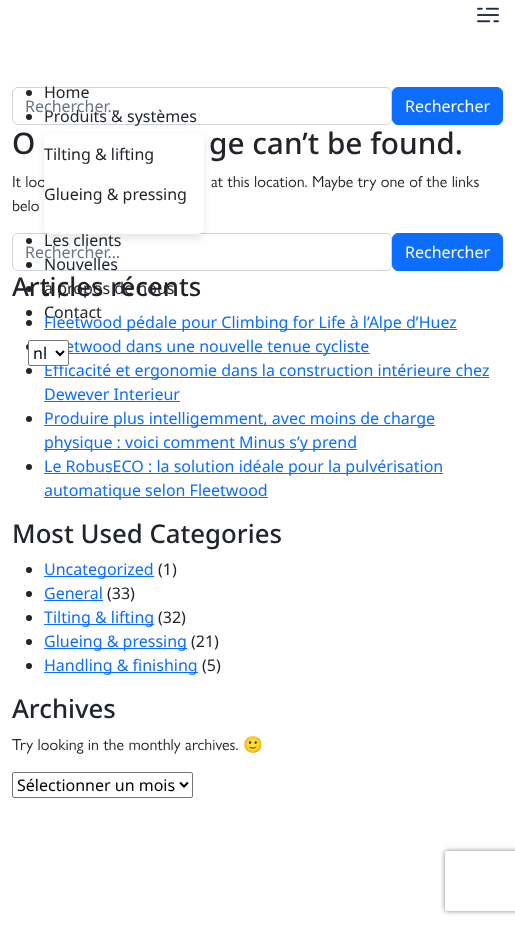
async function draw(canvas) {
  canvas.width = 515;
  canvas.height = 925;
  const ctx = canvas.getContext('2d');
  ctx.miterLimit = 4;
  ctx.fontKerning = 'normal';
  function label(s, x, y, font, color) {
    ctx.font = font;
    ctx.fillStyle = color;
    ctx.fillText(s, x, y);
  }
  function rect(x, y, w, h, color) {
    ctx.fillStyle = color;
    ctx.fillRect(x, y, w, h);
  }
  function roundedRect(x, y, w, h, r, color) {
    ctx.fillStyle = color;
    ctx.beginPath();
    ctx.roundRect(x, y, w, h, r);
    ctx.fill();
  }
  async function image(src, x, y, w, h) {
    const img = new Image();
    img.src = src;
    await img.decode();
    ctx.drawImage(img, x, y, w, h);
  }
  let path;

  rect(0, 0, 515, 925, '#fff');
  await image('assets/img1.png', 477, 7, 22, 16);
  ctx.beginPath();
  ctx.roundRect(12.5, 87.5, 379, 37, 5.5);
  ctx.strokeStyle = '#ced4da';
  ctx.stroke();
  ctx.fillStyle = '#212529';
  ctx.beginPath();
  ctx.arc(29, 93, 3, 0, 2 * Math.PI);
  ctx.fill();
  label('Home', 44, 98, '16px Noto Sans', '#212529');
  ctx.beginPath();
  ctx.arc(29, 117, 3, 0, 2 * Math.PI);
  ctx.fill();
  label('Produits & systèmes', 44, 122, '16px Noto Sans', '#212529');
  ctx.beginPath();
  ctx.roundRect(12.5, 233.5, 379, 37, 5.5);
  ctx.stroke();
  ctx.beginPath();
  ctx.arc(29, 241, 3, 0, 2 * Math.PI);
  ctx.fill();
  ctx.fillStyle = '#0000001a';
  ctx.filter = 'blur(4px)';
  ctx.beginPath();
  ctx.roundRect(44, 138, 160, 100, 6);
  ctx.fill();
  ctx.filter = 'none';
  label('Les clients', 44, 246, '16px Noto Sans', '#212529');
  label('It loo', 12, 187, '16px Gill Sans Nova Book', '#212529');
  roundedRect(44, 134, 160, 100, 6, '#fff');
  label('Tilting & lifting', 44, 160, '16px Noto Sans', '#212529');
  label('Glueing & pressing', 44, 200, '16px Noto Sans', '#212529');
  ctx.beginPath();
  ctx.arc(29, 265, 3, 0, 2 * Math.PI);
  ctx.fill();
  label('Nouvelles', 44, 270, '16px Noto Sans', '#212529');
  ctx.beginPath();
  ctx.arc(29, 289, 3, 0, 2 * Math.PI);
  ctx.fill();
  label('Articles récents', 12, 296, '500 25.75px Noto Sans', '#212529');
  label('à propos de nous', 44, 294, '16px Noto Sans', '#212529');
  ctx.beginPath();
  ctx.arc(29, 313, 3, 0, 2 * Math.PI);
  ctx.fill();
  label('Contact', 44, 318, '16px Noto Sans', '#212529');
  ctx.beginPath();
  ctx.arc(29, 347, 3, 0, 2 * Math.PI);
  ctx.fill();
  rect(69, 353, 301, 1, '#0d6efd');
  label('etwood dans une nouvelle tenue cycliste', 65, 352, '16px Noto Sans', '#0d6efd');
  rect(44, 377, 445, 1, '#0d6efd');
  label('Efficacité et ergonomie dans la construction intérieure chez', 44, 376, '16px Noto Sans', '#0d6efd');
  ctx.fillStyle = '#fff';
  ctx.beginPath();
  ctx.roundRect(28.5, 340.5, 40, 25, 1.5);
  ctx.fill();
  ctx.strokeStyle = '#767676';
  ctx.stroke();
  path = new Path2D('M56 351L60 355L64 351');
  ctx.strokeStyle = '#000';
  ctx.lineWidth = 2;
  ctx.stroke(path);
  label('nl', 33, 359, '16px Noto Sans', '#000');
  label('Rechercher…', 25, 112, '16px Noto Sans', '#6c757d');
  ctx.fillStyle = '#0d6efd';
  ctx.beginPath();
  ctx.roundRect(392.5, 87.5, 110, 37, 5.5);
  ctx.fill();
  ctx.strokeStyle = '#0d6efd';
  ctx.lineWidth = 1;
  ctx.stroke();
  label('Rechercher', 405, 112, '16px Noto Sans', '#fff');
  label('O', 12, 154, '500 29.75px Noto Sans', '#212529');
  label('ge can’t be found.', 209, 154, '500 29.75px Noto Sans', '#212529');
  label('at this location. Maybe try one of the links', 211, 187, '16px Gill Sans Nova Book', '#212529');
  label('belo', 12, 211, '16px Gill Sans Nova Book', '#212529');
  label('Rechercher…', 25, 258, '16px Noto Sans', '#6c757d');
  ctx.fillStyle = '#0d6efd';
  ctx.beginPath();
  ctx.roundRect(392.5, 233.5, 110, 37, 5.5);
  ctx.fill();
  ctx.stroke();
  label('Rechercher', 405, 258, '16px Noto Sans', '#fff');
  ctx.fillStyle = '#212529';
  ctx.beginPath();
  ctx.arc(29, 323, 3, 0, 2 * Math.PI);
  ctx.fill();
  rect(44, 329, 413, 1, '#0d6efd');
  label('Fleetwood pédale pour Climbing for Life à l’Alpe d’Huez', 44, 328, '16px Noto Sans', '#0d6efd');
  ctx.fillStyle = '#212529';
  ctx.beginPath();
  ctx.arc(29, 371, 3, 0, 2 * Math.PI);
  ctx.fill();
  label('Dewever Interieur', 44, 400, '16px Noto Sans', '#0d6efd');
  rect(44, 401, 136, 1, '#0d6efd');
  ctx.fillStyle = '#212529';
  ctx.beginPath();
  ctx.arc(29, 419, 3, 0, 2 * Math.PI);
  ctx.fill();
  rect(44, 425, 391, 1, '#0d6efd');
  label('Produire plus intelligemment, avec moins de charge', 44, 424, '16px Noto Sans', '#0d6efd');
  rect(44, 449, 313, 1, '#0d6efd');
  label('physique : voici comment Minus s’y prend', 44, 448, '16px Noto Sans', '#0d6efd');
  ctx.fillStyle = '#212529';
  ctx.beginPath();
  ctx.arc(29, 467, 3, 0, 2 * Math.PI);
  ctx.fill();
  rect(44, 473, 399, 1, '#0d6efd');
  label('Le RobusECO : la solution idéale pour la pulvérisation', 44, 472, '16px Noto Sans', '#0d6efd');
  rect(44, 497, 224, 1, '#0d6efd');
  label('automatique selon Fleetwood', 44, 496, '16px Noto Sans', '#0d6efd');
  label('Most Used Categories', 12, 543, '500 25.75px Noto Sans', '#212529');
  ctx.beginPath();
  ctx.arc(29, 570, 3, 0, 2 * Math.PI);
  ctx.fill();
  rect(44, 576, 110, 1, '#0d6efd');
  label('Uncategorized', 44, 575, '16px Noto Sans', '#0d6efd');
  label('(1)', 158, 575, '16px Noto Sans', '#212529');
  ctx.beginPath();
  ctx.arc(29, 594, 3, 0, 2 * Math.PI);
  ctx.fill();
  label('General', 44, 599, '16px Noto Sans', '#0d6efd');
  rect(44, 600, 59, 1, '#0d6efd');
  label('(33)', 107, 599, '16px Noto Sans', '#212529');
  ctx.beginPath();
  ctx.arc(29, 618, 3, 0, 2 * Math.PI);
  ctx.fill();
  rect(44, 624, 110, 1, '#0d6efd');
  label('Tilting & lifting', 44, 623, '16px Noto Sans', '#0d6efd');
  label('(32)', 158, 623, '16px Noto Sans', '#212529');
  ctx.beginPath();
  ctx.arc(29, 642, 3, 0, 2 * Math.PI);
  ctx.fill();
  rect(44, 648, 143, 1, '#0d6efd');
  label('Glueing & pressing', 44, 647, '16px Noto Sans', '#0d6efd');
  label('(21)', 191, 647, '16px Noto Sans', '#212529');
  ctx.beginPath();
  ctx.arc(29, 666, 3, 0, 2 * Math.PI);
  ctx.fill();
  rect(44, 672, 154, 1, '#0d6efd');
  label('Handling & finishing', 44, 671, '16px Noto Sans', '#0d6efd');
  label('(5)', 202, 671, '16px Noto Sans', '#212529');
  label('Archives', 12, 718, '500 25.75px Noto Sans', '#212529');
  label('Try looking in the monthly archives.', 12, 750, '16px Gill Sans Nova Book', '#212529');
  label('🙂', 243, 750, '16px Noto Color Emoji', '#212529');
  ctx.beginPath();
  ctx.roundRect(12.5, 772.5, 180, 25, 1.5);
  ctx.strokeStyle = '#767676';
  ctx.stroke();
  path = new Path2D('M180 782.5L184 786.5L188 782.5');
  ctx.strokeStyle = '#000';
  ctx.lineWidth = 2;
  ctx.stroke(path);
  label('Sélectionner un mois', 17, 791, '16px Noto Sans', '#000');
  ctx.save();
  path = new Path2D('M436 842H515V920H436ZM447 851H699C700 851 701 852 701 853V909C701 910 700 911 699 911H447C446 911 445 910 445 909V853C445 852 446 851 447 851Z');
  ctx.clip(path, 'evenodd');
  ctx.fillStyle = '#808080';
  ctx.filter = 'blur(2.5px)';
  ctx.beginPath();
  ctx.roundRect(445, 851, 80, 60, 2);
  ctx.fill();
  ctx.filter = 'none';
  ctx.restore();
}

draw(document.querySelector('canvas'));
